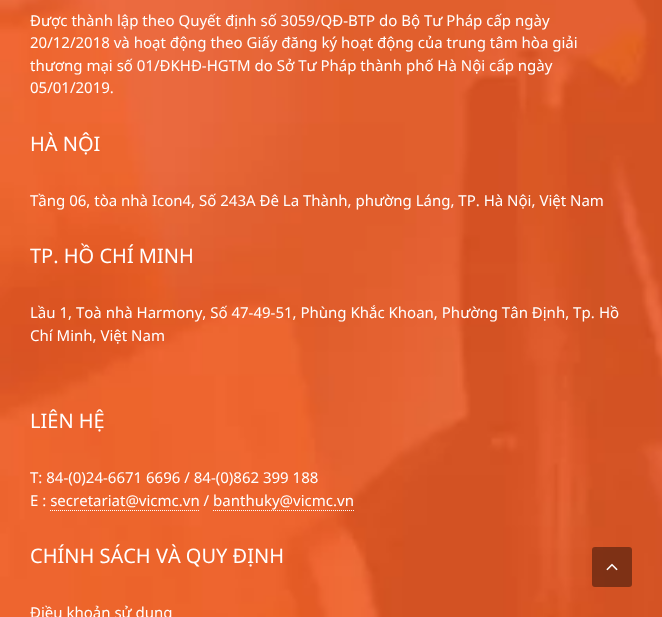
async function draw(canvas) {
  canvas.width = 662;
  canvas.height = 617;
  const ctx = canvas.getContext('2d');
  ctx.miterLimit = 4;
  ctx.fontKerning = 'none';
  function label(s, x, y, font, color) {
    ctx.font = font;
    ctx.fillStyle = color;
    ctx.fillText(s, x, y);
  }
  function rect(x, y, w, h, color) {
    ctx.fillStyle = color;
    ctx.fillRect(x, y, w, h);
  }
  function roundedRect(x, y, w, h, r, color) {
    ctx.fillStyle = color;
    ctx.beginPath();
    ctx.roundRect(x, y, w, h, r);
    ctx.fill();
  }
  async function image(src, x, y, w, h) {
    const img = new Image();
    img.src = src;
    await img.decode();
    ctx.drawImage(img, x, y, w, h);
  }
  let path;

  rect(0, 0, 662, 617, '#fff');
  await image('assets/img1.png', 0, 0, 662, 617);
  label('Được thành lập theo Quyết định số 3059/QĐ-BTP do Bộ Tư Pháp cấp ngày', 30, 26, '15px Noto Sans', '#fff');
  label('20/12/2018 và hoạt động theo Giấy đăng ký hoạt động của trung tâm hòa giải', 30, 48, '15px Noto Sans', '#fff');
  label('thương mại số 01/ĐKHĐ-HGTM do Sở Tư Pháp thành phố Hà Nội cấp ngày', 30, 71, '15px Noto Sans', '#fff');
  label('05/01/2019.', 30, 93, '15px Noto Sans', '#fff');
  label('HÀ NỘI', 30, 151, '20px Noto Sans', '#fff');
  label('Tầng 06, tòa nhà Icon4, Số 243A Đê La Thành, phường Láng, TP. Hà Nội, Việt Nam', 30, 206, '15px Noto Sans', '#fff');
  label('TP. HỒ CHÍ MINH', 30, 263, '20px Noto Sans', '#fff');
  label('Lầu 1, Toà nhà Harmony, Số 47-49-51, Phùng Khắc Khoan, Phường Tân Định, Tp.', 30, 318, '15px Noto Sans', '#fff');
  label('Hồ', 599, 318, '15px Noto Sans', '#fff');
  label('Chí Minh, Việt Nam', 30, 341, '15px Noto Sans', '#fff');
  label('LIÊN HỆ', 30, 428, '20px Noto Sans', '#fff');
  label('T: 84-(0)24-6671 6696 / 84-(0)862 399 188', 30, 483, '15px Noto Sans', '#fff');
  label('E : secretariat@vicmc.vn / banthuky@vicmc.vn', 30, 506, '15px Noto Sans', '#fff');
  path = new Path2D('M50 510.5H200');
  ctx.strokeStyle = '#fff';
  ctx.setLineDash([1, 1]);
  ctx.stroke(path);
  path = new Path2D('M213 510.5H354');
  ctx.stroke(path);
  label('CHÍNH SÁCH VÀ QUY ĐỊNH', 30, 563, '20px Noto Sans', '#fff');
  label('Điều khoản sử dụng', 30, 618, '15px Noto Sans', '#fff');
  roundedRect(592, 547, 40, 40, 3, '#00000066');
  await image('assets/img2.png', 606, 563, 12, 8);
}

draw(document.querySelector('canvas'));
